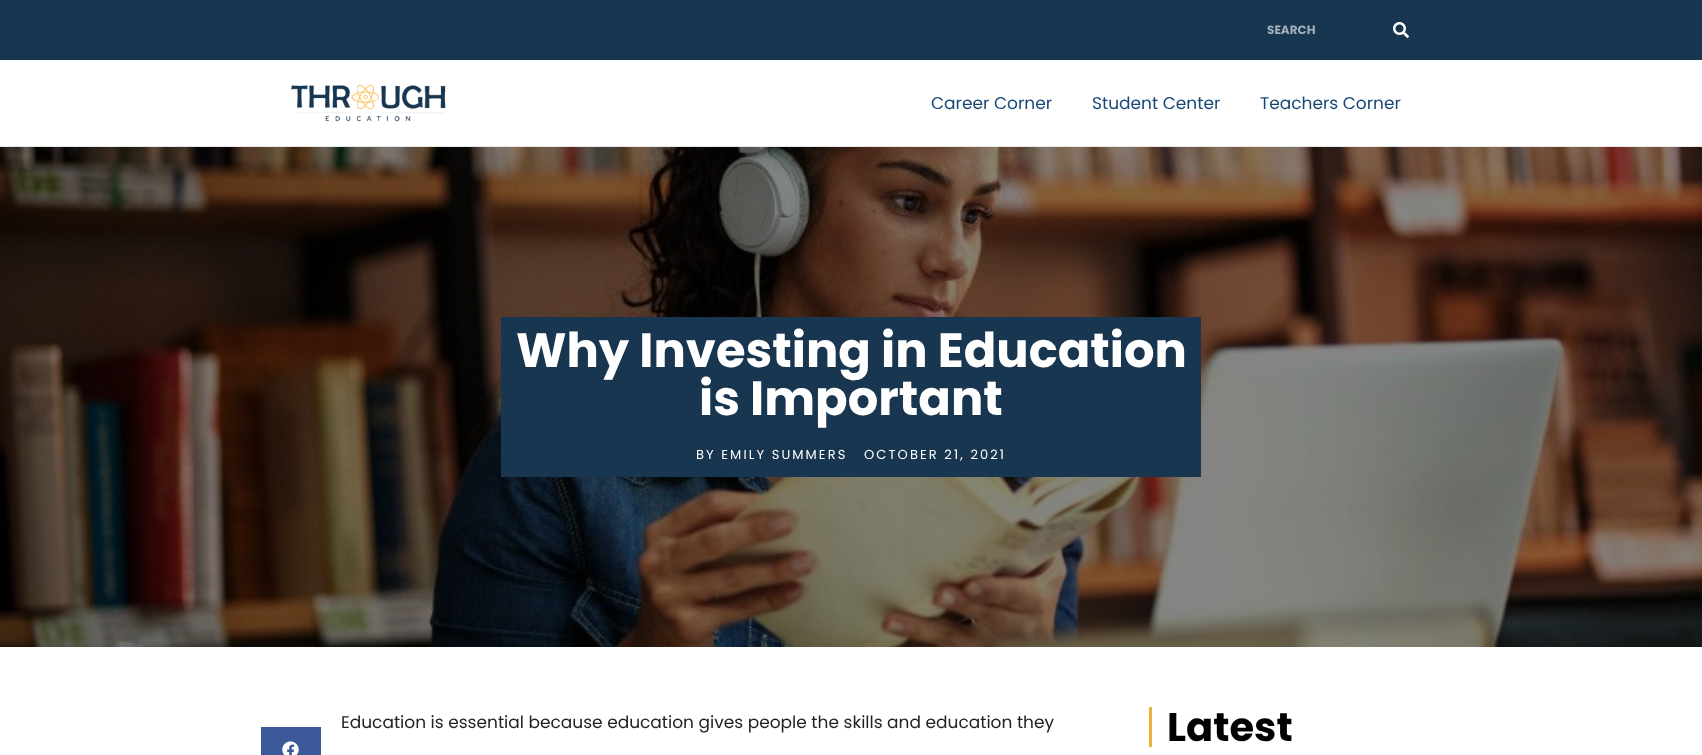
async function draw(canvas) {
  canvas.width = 1702;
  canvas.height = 755;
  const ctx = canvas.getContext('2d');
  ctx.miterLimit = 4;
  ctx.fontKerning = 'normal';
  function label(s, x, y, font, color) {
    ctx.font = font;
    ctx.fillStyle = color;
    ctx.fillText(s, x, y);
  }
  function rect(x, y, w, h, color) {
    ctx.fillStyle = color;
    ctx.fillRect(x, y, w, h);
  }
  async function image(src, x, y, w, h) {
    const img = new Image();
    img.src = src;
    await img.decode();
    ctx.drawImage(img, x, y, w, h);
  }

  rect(0, 0, 1702, 755, '#fff');
  rect(0, 0, 1702, 60, '#193651');
  label('SEARCH', 1267, 34, 'bold 12px Poppins', '#a3afb9');
  await image('assets/img1.png', 1393, 22, 16, 16);
  rect(0, 146, 1702, 1, '#e8e8e8');
  await image('assets/img2.png', 291, 84, 155, 38);
  label('Career Corner', 931, 109, '17px Poppins', '#174777');
  label('Student Center', 1092, 109, '17px Poppins', '#174777');
  label('Teachers Corner', 1260, 109, '17px Poppins', '#174777');
  await image('assets/img3.png', 0, 147, 1702, 500);
  rect(501, 317, 700, 160, '#193651');
  label('Why Investing in Education', 516, 367, 'bold 48px Poppins', '#fff');
  label('is Important', 699, 415, 'bold 48px Poppins', '#fff');
  ctx.letterSpacing = '2.1px';
  label('BY EMILY SUMMERS', 696, 459, '13px Poppins', '#fff');
  label('OCTOBER 21, 2021', 864, 459, '13px Poppins', '#fff');
  ctx.letterSpacing = '0px';
  label('Education is essential because education gives people the skills and education they', 341, 728, '17px Poppins', '#212222');
  rect(1149, 707, 3, 40, '#eeb13c');
  label('Latest', 1167, 741, 'bold 40px Poppins', '#000');
  rect(261, 727, 60, 28, '#3b5998');
  await image('assets/img4.png', 282, 741, 17, 14);
}

draw(document.querySelector('canvas'));
